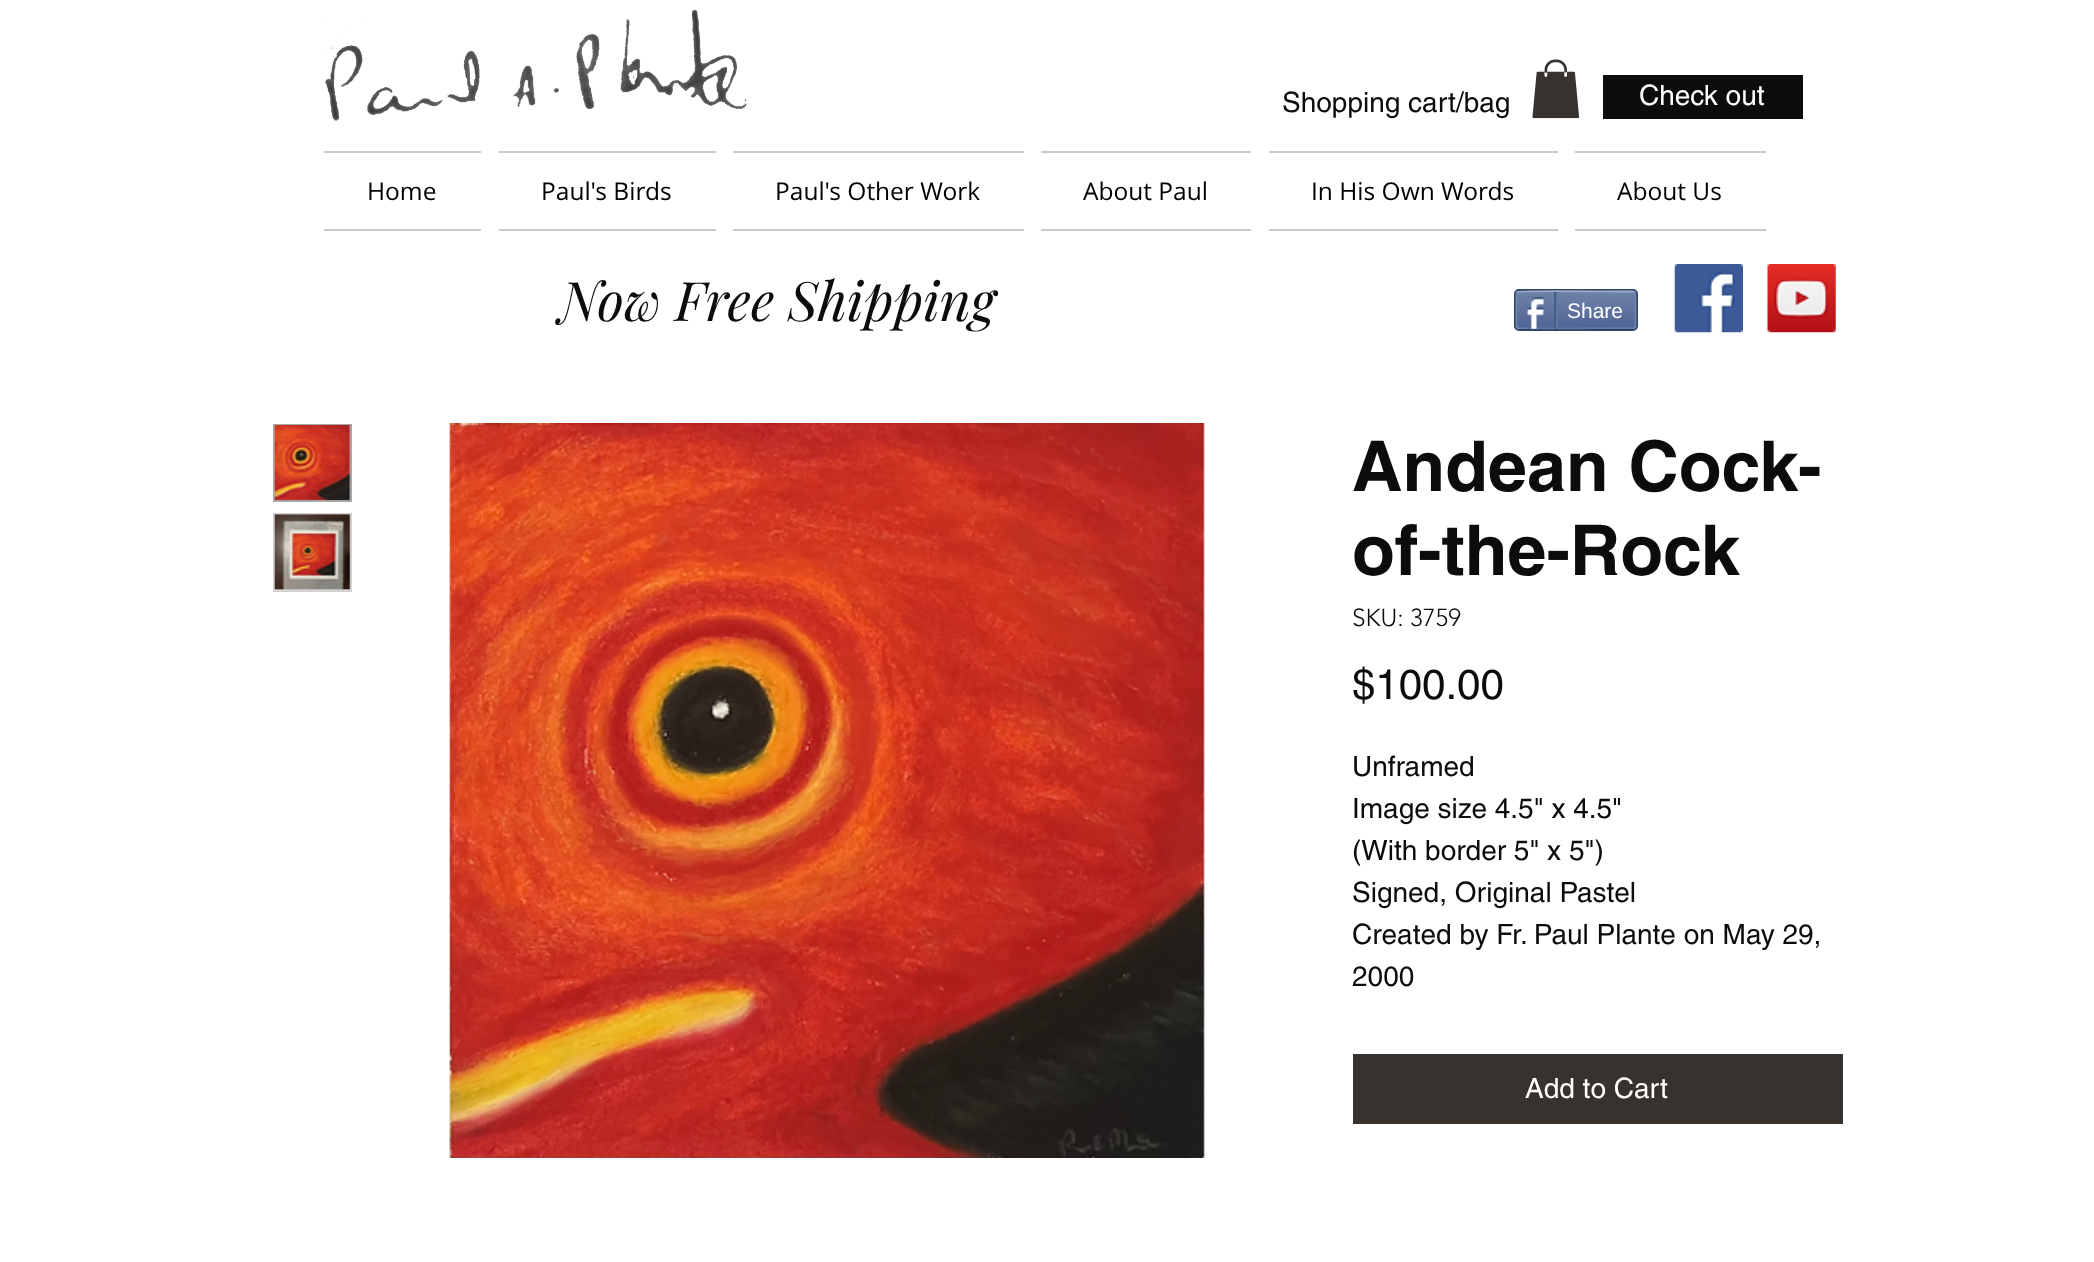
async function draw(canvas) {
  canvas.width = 2094;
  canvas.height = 1262;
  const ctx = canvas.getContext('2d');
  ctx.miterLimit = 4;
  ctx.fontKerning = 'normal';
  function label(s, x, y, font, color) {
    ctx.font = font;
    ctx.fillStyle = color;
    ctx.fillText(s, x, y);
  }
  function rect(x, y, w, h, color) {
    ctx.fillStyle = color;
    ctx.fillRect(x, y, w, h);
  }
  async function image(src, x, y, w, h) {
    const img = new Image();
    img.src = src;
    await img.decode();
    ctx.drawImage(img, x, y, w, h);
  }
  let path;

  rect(0, 0, 2094, 1262, '#fff');
  await image('assets/img1.png', 325, 9, 422, 112);
  label('Shopping cart/bag', 1282, 112, '28px helvetica', '#0c0c0d');
  await image('assets/img2.png', 1532, 59, 48, 60);
  rect(1603, 75, 200, 44, '#0c0c0d');
  label('Check out', 1639, 105, '28px helvetica', '#fff');
  rect(324, 151, 157, 2, '#cacaca');
  rect(324, 229, 157, 2, '#cacaca');
  label('Home', 367, 200, '24.5px Open Sans', '#000');
  rect(499, 151, 217, 2, '#cacaca');
  rect(499, 229, 217, 2, '#cacaca');
  label('Paul\'s Birds', 541, 200, '24.5px Open Sans', '#000');
  rect(733, 151, 291, 2, '#cacaca');
  rect(733, 229, 291, 2, '#cacaca');
  label('Paul\'s Other Work', 775, 200, '24.5px Open Sans', '#000');
  rect(1041, 151, 210, 2, '#cacaca');
  rect(1041, 229, 210, 2, '#cacaca');
  label('About Paul', 1083, 200, '24.5px Open Sans', '#000');
  rect(1269, 151, 289, 2, '#cacaca');
  rect(1269, 229, 289, 2, '#cacaca');
  label('In His Own Words', 1311, 200, '24.5px Open Sans', '#000');
  rect(1575, 151, 191, 2, '#cacaca');
  rect(1575, 229, 191, 2, '#cacaca');
  label('About Us', 1617, 200, '24.5px Open Sans', '#000');
  label('Now Free Shipping', 559, 321, 'italic 54.25px Playfair Display', '#0c0c0d');
  ctx.beginPath();
  ctx.roundRect(1515, 290, 122, 40, 4);
  ctx.strokeStyle = '#2d4565';
  ctx.lineWidth = 2;
  ctx.stroke();
  await image('assets/img3.png', 1515, 292, 122, 37);
  path = new Path2D('M1517 292H1517.5C1519.5 290.5 1604 291.5 1614 291.5H1633L1634.5 292');
  ctx.strokeStyle = '#9aabc6';
  ctx.lineWidth = 1.8;
  ctx.stroke(path);
  path = new Path2D('M1634.5 292C1635 292.5 1635.5 293.5 1635.5 294V325.5C1635.5 326 1635 327 1634.5 327.5');
  ctx.strokeStyle = '#6f83ad';
  ctx.stroke(path);
  path = new Path2D('M1634.5 327.5L1633 328H1614C1604 328 1519.5 329 1517.5 327.5H1517');
  ctx.strokeStyle = '#6176a3';
  ctx.stroke(path);
  path = new Path2D('M1517 327.5C1516.5 327 1516.5 326 1516.5 325.5V294C1516.5 293.5 1516.5 292.5 1517 292');
  ctx.strokeStyle = '#6f83ad';
  ctx.stroke(path);
  await image('assets/img4.png', 1526, 297, 18, 32);
  rect(1554, 292, 2, 37, '#425e85');
  label('Share', 1567, 318, '21px Liberation Sans', '#fff');
  rect(1556, 292, 2, 35, '#6176a3');
  await image('assets/img5.png', 1674, 264, 69, 69);
  await image('assets/img6.png', 1767, 264, 69, 69);
  ctx.strokeStyle = '#a8a8a8';
  ctx.lineWidth = 2;
  ctx.strokeRect(274, 425, 77, 76);
  await image('assets/img7.png', 274, 425, 77, 76);
  rect(273, 513, 79, 79, '#d1d1d1');
  await image('assets/img8.png', 274, 514, 77, 76);
  await image('assets/img9.png', 449, 423, 756, 735);
  label('Andean Cock-', 1352, 491, 'bold 70px helvetica', '#0c0c0d');
  label('of-the-Rock', 1352, 575, 'bold 70px helvetica', '#0c0c0d');
  label('SKU: 3759', 1352, 626, '300 24.5px "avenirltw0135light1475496"', '#0c0c0d');
  label('$100.00', 1352, 699, '42px helvetica', '#0c0c0d');
  label('Unframed', 1352, 776, '28px helvetica', '#0c0c0d');
  label('Image size 4.5" x 4.5"', 1352, 818, '28px helvetica', '#0c0c0d');
  label('(With border 5" x 5")', 1352, 860, '28px helvetica', '#0c0c0d');
  label('Signed, Original Pastel', 1352, 902, '28px helvetica', '#0c0c0d');
  label('Created by Fr. Paul Plante on May 29,', 1352, 944, '28px helvetica', '#0c0c0d');
  label('2000', 1352, 986, '28px helvetica', '#0c0c0d');
  rect(1353, 1054, 490, 70, '#37322e');
  label('Add to Cart', 1525, 1098, '28px helvetica', '#fff');
}

draw(document.querySelector('canvas'));
